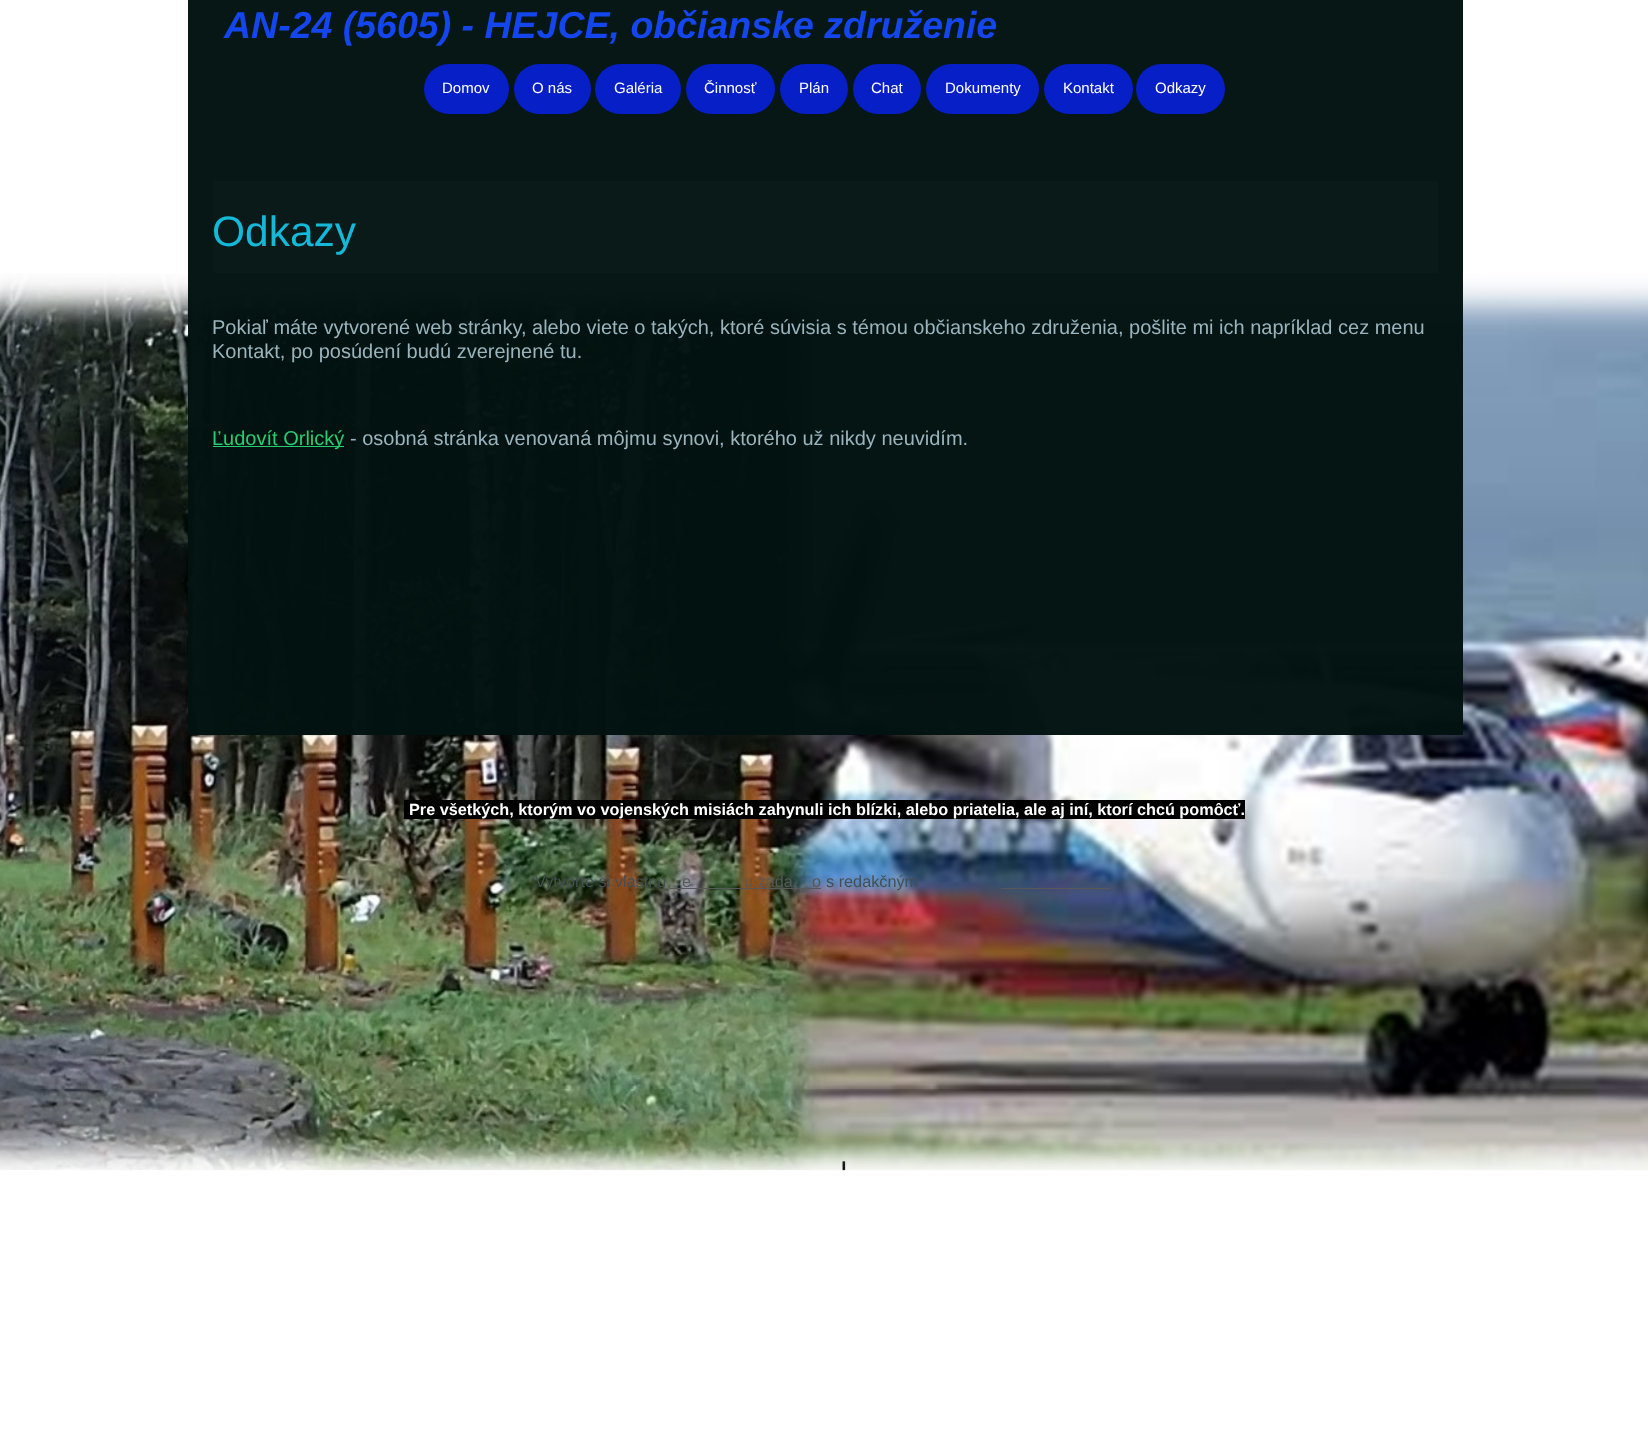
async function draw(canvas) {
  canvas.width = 1648;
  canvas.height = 1437;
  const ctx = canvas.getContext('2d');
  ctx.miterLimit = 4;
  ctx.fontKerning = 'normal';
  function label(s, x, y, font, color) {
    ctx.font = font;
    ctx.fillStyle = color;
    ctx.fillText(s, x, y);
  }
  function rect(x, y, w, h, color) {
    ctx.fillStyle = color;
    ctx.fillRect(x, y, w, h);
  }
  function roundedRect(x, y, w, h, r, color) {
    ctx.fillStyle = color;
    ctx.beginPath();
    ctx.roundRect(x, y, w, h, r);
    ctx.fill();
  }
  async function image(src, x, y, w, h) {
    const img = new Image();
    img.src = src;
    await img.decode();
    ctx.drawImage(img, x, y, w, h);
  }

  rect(0, 0, 1648, 1437, '#fff');
  await image('assets/img1.png', 0, 273, 1648, 898);
  rect(188, 0, 1275, 735, '#021210fa');
  label('AN-24 (5605) - HEJCE, občianske združenie', 224, 38, 'italic bold 37.5px Liberation Sans', '#1346ed');
  roundedRect(424, 64, 85, 50, 25, '#071fc7');
  label('Domov', 442, 93, '15px Liberation Sans', '#fff');
  roundedRect(514, 64, 77, 50, 25, '#071fc7');
  label('O nás', 532, 93, '15px Liberation Sans', '#fff');
  roundedRect(595, 64, 86, 50, 25, '#071fc7');
  label('Galéria', 614, 93, '15px Liberation Sans', '#fff');
  roundedRect(686, 64, 89, 50, 25, '#071fc7');
  label('Činnosť', 704, 93, '15px Liberation Sans', '#fff');
  roundedRect(780, 64, 68, 50, 25, '#071fc7');
  label('Plán', 799, 93, '15px Liberation Sans', '#fff');
  roundedRect(853, 64, 68, 50, 25, '#071fc7');
  label('Chat', 871, 93, '15px Liberation Sans', '#fff');
  roundedRect(926, 64, 113, 50, 25, '#071fc7');
  label('Dokumenty', 945, 93, '15px Liberation Sans', '#fff');
  roundedRect(1044, 64, 89, 50, 25, '#071fc7');
  label('Kontakt', 1063, 93, '15px Liberation Sans', '#fff');
  roundedRect(1136, 64, 89, 50, 25, '#071fc7');
  label('Odkazy', 1155, 93, '15px Liberation Sans', '#fff');
  rect(213, 181, 1225, 92, '#091a19');
  label('Odkazy', 212, 246, '42.5px Liberation Sans', '#14b8d9');
  label('Pokiaľ máte vytvorené web stránky, alebo viete o takých, ktoré súvisia s témou občianskeho združenia, pošlite mi ich napríklad cez menu', 212, 334, '20px Liberation Sans', '#9ab4be');
  label('Kontakt, po posúdení budú zverejnené tu.', 212, 358, '20px Liberation Sans', '#9ab4be');
  rect(213, 446, 131, 1, '#27cd71');
  label('Ľudovít Orlický', 212, 445, '20px Liberation Sans', '#27cd71');
  label('- osobná stránka venovaná môjmu synovi, ktorého už nikdy neuvidím.', 350, 445, '20px Liberation Sans', '#9ab4be');
  rect(404, 800, 841, 19, '#000');
  label('Pre všetkých, ktorým vo vojenských misiách zahynuli ich blízki, alebo priatelia, ale aj iní, ktorí chcú pomôcť.', 409, 815, 'bold 16.25px Liberation Sans', '#fff');
  label('Vytvorte si vlastnú', 535, 887, '16.25px Liberation Sans', '#464e51');
  label('e', 682, 887, '16.25px Liberation Sans', '#585858');
  rect(670, 888, 151, 1, '#585858');
  label('u zada', 744, 887, '16.25px Liberation Sans', '#585858');
  label('o', 812, 887, '16.25px Liberation Sans', '#585858');
  label('s redakčným', 826, 887, '16.25px Liberation Sans', '#464e51');
  rect(1001, 888, 109, 1, '#585858');
}

draw(document.querySelector('canvas'));
